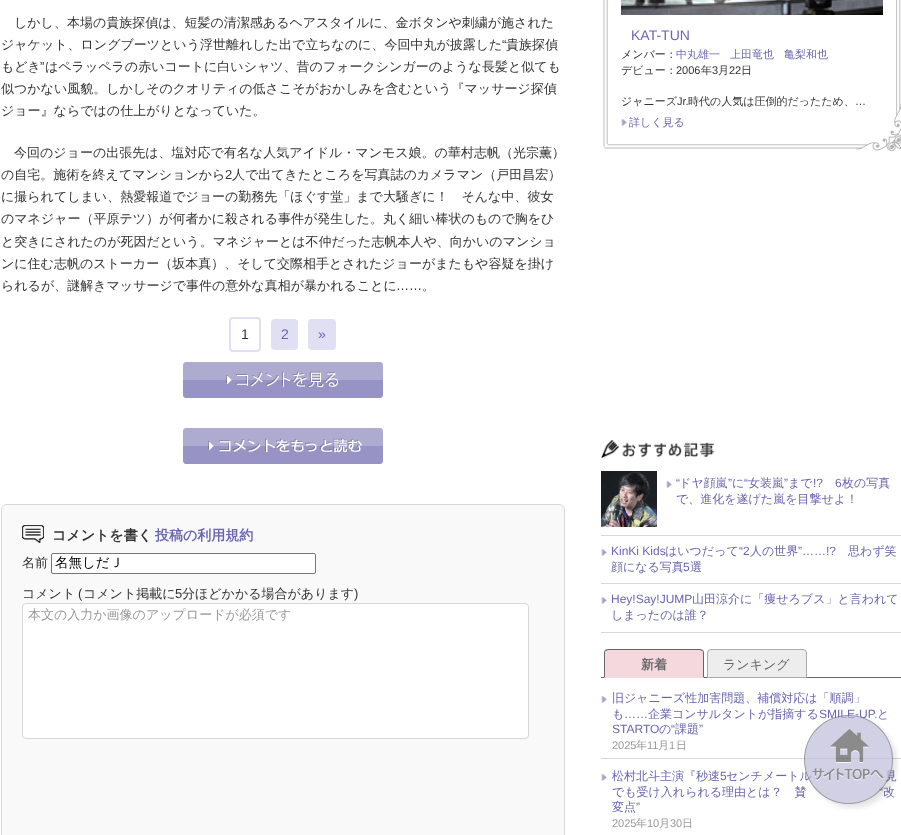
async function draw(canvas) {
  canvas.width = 901;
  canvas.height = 835;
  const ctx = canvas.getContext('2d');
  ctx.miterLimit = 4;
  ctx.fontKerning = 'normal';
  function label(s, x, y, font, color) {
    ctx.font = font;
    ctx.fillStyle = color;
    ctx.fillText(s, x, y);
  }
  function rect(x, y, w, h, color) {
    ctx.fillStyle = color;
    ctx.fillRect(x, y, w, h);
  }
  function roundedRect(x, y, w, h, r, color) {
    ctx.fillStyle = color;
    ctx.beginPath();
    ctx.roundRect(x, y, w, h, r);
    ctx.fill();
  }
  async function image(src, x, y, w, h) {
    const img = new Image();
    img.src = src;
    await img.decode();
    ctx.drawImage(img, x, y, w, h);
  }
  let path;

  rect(0, 0, 901, 835, '#fff');
  label('しかし、本場の貴族探偵は、短髪の清潔感あるヘアスタイルに、金ボタンや刺繍が施された', 14, 27, '500 13px WenQuanYi Zen Hei', '#333');
  label('ジャケット、ロングブーツという浮世離れした出で立ちなのに、今回中丸が披露した', 1, 49, '500 13px WenQuanYi Zen Hei', '#333');
  label('“', 502, 49, '13px Liberation Sans', '#333');
  label('貴族探偵', 506, 49, '500 13px WenQuanYi Zen Hei', '#333');
  label('もどき', 1, 71, '500 13px WenQuanYi Zen Hei', '#333');
  label('”', 40, 71, '13px Liberation Sans', '#333');
  label('はペラッペラの赤いコートに白いシャツ、昔のフォークシンガーのような長髪と似ても', 45, 71, '500 13px WenQuanYi Zen Hei', '#333');
  label('似つかない風貌。しかしそのクオリティの低さこそがおかしみを含むという『マッサージ探偵', 1, 93, '500 13px WenQuanYi Zen Hei', '#333');
  label('ジョー』ならではの仕上がりとなっていた。', 1, 115, '500 13px WenQuanYi Zen Hei', '#333');
  label('今回のジョーの出張先は、塩対応で有名な人気アイドル・マンモス娘。の華村志帆（光宗薫）', 14, 157, '500 13px WenQuanYi Zen Hei', '#333');
  label('の自宅。施術を終えてマンションから', 1, 179, '500 13px WenQuanYi Zen Hei', '#333');
  label('2', 225, 179, '13px Liberation Sans', '#333');
  label('人で出てきたところを写真誌のカメラマン（戸田昌宏）', 232, 179, '500 13px WenQuanYi Zen Hei', '#333');
  label('に撮られてしまい、熱愛報道でジョーの勤務先「ほぐす堂」まで大騒ぎに！　そんな中、彼女', 1, 201, '500 13px WenQuanYi Zen Hei', '#333');
  label('のマネジャー（平原テツ）が何者かに殺される事件が発生した。丸く細い棒状のもので胸をひ', 1, 223, '500 13px WenQuanYi Zen Hei', '#333');
  label('と突きにされたのが死因だという。マネジャーとは不仲だった志帆本人や、向かいのマンショ', 1, 246, '500 13px WenQuanYi Zen Hei', '#333');
  label('ンに住む志帆のストーカー（坂本真）、そして交際相手とされたジョーがまたもや容疑を掛け', 1, 268, '500 13px WenQuanYi Zen Hei', '#333');
  label('られるが、謎解きマッサージで事件の意外な真相が暴かれることに', 1, 290, '500 13px WenQuanYi Zen Hei', '#333');
  label('……', 396, 290, '13px Liberation Sans', '#333');
  label('。', 422, 290, '500 13px WenQuanYi Zen Hei', '#333');
  ctx.beginPath();
  ctx.roundRect(230, 318, 30, 33, 3);
  ctx.strokeStyle = '#e0dff4';
  ctx.lineWidth = 2;
  ctx.stroke();
  label('1', 241, 339, '14px Liberation Sans', '#333');
  roundedRect(271, 319, 27, 31, 4, '#e0dff4');
  label('2', 281, 339, '14px Liberation Sans', '#6a65b1');
  roundedRect(308, 319, 28, 31, 4, '#e0dff4');
  label('»', 318, 339, '14px Liberation Sans', '#6a65b1');
  await image('assets/img1.png', 183, 362, 200, 36);
  await image('assets/img2.png', 183, 428, 200, 36);
  ctx.fillStyle = '#f9f9f9';
  ctx.beginPath();
  ctx.roundRect(1.5, 504.5, 563, 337, 5.5);
  ctx.fill();
  ctx.strokeStyle = '#d7d7d7';
  ctx.lineWidth = 1;
  ctx.stroke();
  await image('assets/img3.png', 22, 525, 22, 18);
  label('コメントを書く', 52, 540, 'bold 14px WenQuanYi Zen Hei', '#333');
  label('投稿の利用規約', 155, 540, 'bold 14px WenQuanYi Zen Hei', '#6a65b1');
  label('名前', 22, 567, '500 13px WenQuanYi Zen Hei', '#333');
  ctx.fillStyle = '#fff';
  ctx.beginPath();
  ctx.roundRect(51.5, 553.5, 264, 20, 1.5);
  ctx.fill();
  ctx.strokeStyle = '#767676';
  ctx.stroke();
  label('名無しだＪ', 55, 567, '500 13.5px WenQuanYi Zen Hei', '#000');
  label('コメント', 22, 598, '500 13px WenQuanYi Zen Hei', '#333');
  label('(', 78, 598, '13px Liberation Sans', '#333');
  label('コメント掲載に', 83, 598, '500 13px WenQuanYi Zen Hei', '#333');
  label('5', 175, 598, '13px Liberation Sans', '#333');
  label('分ほどかかる場合があります', 182, 598, '500 13px WenQuanYi Zen Hei', '#333');
  label(')', 354, 598, '13px Liberation Sans', '#333');
  ctx.fillStyle = '#fff';
  ctx.beginPath();
  ctx.roundRect(22.5, 603.5, 506, 135, 3.5);
  ctx.fill();
  ctx.strokeStyle = '#d7d7d7';
  ctx.stroke();
  label('本文の入力か画像のアップロードが必須です', 28, 619, '500 13px WenQuanYi Zen Hei', '#999');
  await image('assets/img4.png', 603, 0, 298, 151);
  await image('assets/img5.png', 621, 0, 262, 15);
  label('KAT-TUN', 631, 40, '14px Liberation Sans', '#6a65b1');
  label('メンバー：', 621, 58, '500 11px WenQuanYi Zen Hei', '#333');
  label('中丸雄一', 676, 58, '500 11px WenQuanYi Zen Hei', '#6a65b1');
  label('上田竜也', 730, 58, '500 11px WenQuanYi Zen Hei', '#6a65b1');
  label('亀梨和也', 784, 58, '500 11px WenQuanYi Zen Hei', '#6a65b1');
  label('デビュー：', 621, 74, '500 11px WenQuanYi Zen Hei', '#333');
  label('2006', 676, 74, '11px Liberation Sans', '#333');
  label('年', 701, 74, '500 11px WenQuanYi Zen Hei', '#333');
  label('3', 712, 74, '11px Liberation Sans', '#333');
  label('月', 718, 74, '500 11px WenQuanYi Zen Hei', '#333');
  label('22', 729, 74, '11px Liberation Sans', '#333');
  label('日', 741, 74, '500 11px WenQuanYi Zen Hei', '#333');
  label('ジャニーズ', 621, 105, '500 11px WenQuanYi Zen Hei', '#333');
  label('Jr.', 677, 105, '11px Liberation Sans', '#333');
  label('時代の人気は圧倒的だったため、', 688, 105, '500 11px WenQuanYi Zen Hei', '#333');
  label('…', 855, 105, '11px Liberation Sans', '#333');
  await image('assets/img6.png', 621, 119, 6, 7);
  label('詳しく見る', 629, 126, '500 11px WenQuanYi Zen Hei', '#6a65b1');
  await image('assets/img7.png', 601, 440, 114, 18);
  rect(601, 535, 300, 1, '#d7d7d7');
  await image('assets/img8.png', 601, 471, 56, 56);
  await image('assets/img9.png', 666, 481, 6, 7);
  label('“', 676, 487, '12px Liberation Sans', '#6a65b1');
  label('ドヤ顔嵐', 679, 487, '500 12px WenQuanYi Zen Hei', '#6a65b1');
  label('”', 728, 487, '12px Liberation Sans', '#6a65b1');
  label('に', 732, 487, '500 12px WenQuanYi Zen Hei', '#6a65b1');
  label('“', 744, 487, '12px Liberation Sans', '#6a65b1');
  label('女装嵐', 748, 487, '500 12px WenQuanYi Zen Hei', '#6a65b1');
  label('”', 784, 487, '12px Liberation Sans', '#6a65b1');
  label('まで', 788, 487, '500 12px WenQuanYi Zen Hei', '#6a65b1');
  label('!?', 813, 487, '12px Liberation Sans', '#6a65b1');
  label('6', 835, 487, '12px Liberation Sans', '#6a65b1');
  label('枚の写真', 842, 487, '500 12px WenQuanYi Zen Hei', '#6a65b1');
  label('で、進化を遂げた嵐を目撃せよ！', 676, 503, '500 12px WenQuanYi Zen Hei', '#6a65b1');
  rect(601, 583, 300, 1, '#d7d7d7');
  await image('assets/img6.png', 601, 549, 6, 7);
  label('KinKi Kids', 611, 555, '12px Liberation Sans', '#6a65b1');
  label('はいつだって', 665, 555, '500 12px WenQuanYi Zen Hei', '#6a65b1');
  label('“2', 739, 555, '12px Liberation Sans', '#6a65b1');
  label('人の世界', 750, 555, '500 12px WenQuanYi Zen Hei', '#6a65b1');
  label('”……!?', 798, 555, '12px Liberation Sans', '#6a65b1');
  label('思わず笑', 848, 555, '500 12px WenQuanYi Zen Hei', '#6a65b1');
  label('顔になる写真', 611, 571, '500 12px WenQuanYi Zen Hei', '#6a65b1');
  label('5', 683, 571, '12px Liberation Sans', '#6a65b1');
  label('選', 690, 571, '500 12px WenQuanYi Zen Hei', '#6a65b1');
  rect(601, 632, 300, 1, '#d7d7d7');
  await image('assets/img6.png', 601, 597, 6, 7);
  label('Hey!Say!JUMP', 611, 603, '12px Liberation Sans', '#6a65b1');
  label('山田涼介に「痩せろブス」と言われて', 692, 603, '500 12px WenQuanYi Zen Hei', '#6a65b1');
  label('しまったのは誰？', 611, 619, '500 12px WenQuanYi Zen Hei', '#6a65b1');
  rect(601, 677, 300, 1, '#666');
  ctx.fillStyle = '#f5d8de';
  ctx.beginPath();
  ctx.roundRect(604, 649, 100, 29, [4, 4, 0, 0]);
  ctx.fill();
  ctx.fillStyle = '#666';
  path = new Path2D('M608 649L605 650L606 651L608 650H700L702 651L703 650L700 649Z');
  ctx.fill(path);
  path = new Path2D('M704 678V653C704 652 703.5 651 703 650L702 651C703 651 703 652 703 653V677Z');
  ctx.fill(path);
  ctx.fillStyle = '#f5d8de';
  path = new Path2D('M704 678L703 677H605L604 678Z');
  ctx.fill(path);
  ctx.fillStyle = '#666';
  path = new Path2D('M604 678L605 677V653C605 652 605 651 606 651L605 650C604.5 651 604 652 604 653Z');
  ctx.fill(path);
  label('新着', 641, 669, 'bold 13px WenQuanYi Zen Hei', '#666');
  ctx.fillStyle = '#ededed';
  ctx.beginPath();
  ctx.roundRect(707.5, 649.5, 99, 28, [3.5, 3.5, 0, 0]);
  ctx.fill();
  ctx.strokeStyle = '#aaa';
  ctx.stroke();
  label('ランキング', 723, 669, '500 13px WenQuanYi Zen Hei', '#666');
  await image('assets/img6.png', 601, 696, 6, 7);
  rect(601, 758, 300, 1, '#d7d7d7');
  label('旧ジャニーズ性加害問題、補償対応は「順調」', 612, 702, '500 12px WenQuanYi Zen Hei', '#6a65b1');
  label('も', 612, 718, '500 12px WenQuanYi Zen Hei', '#6a65b1');
  label('……', 624, 718, '12px Liberation Sans', '#6a65b1');
  label('企業コンサルタントが指摘する', 648, 718, '500 12px WenQuanYi Zen Hei', '#6a65b1');
  label('SMILE-UP.', 819, 718, '12px Liberation Sans', '#6a65b1');
  label('と', 877, 718, '500 12px WenQuanYi Zen Hei', '#6a65b1');
  label('STARTO', 612, 733, '12px Liberation Sans', '#6a65b1');
  label('の', 659, 733, '500 12px WenQuanYi Zen Hei', '#6a65b1');
  label('“', 671, 733, '12px Liberation Sans', '#6a65b1');
  label('課題', 675, 733, '500 12px WenQuanYi Zen Hei', '#6a65b1');
  label('”', 699, 733, '12px Liberation Sans', '#6a65b1');
  label('2025', 612, 749, '11px Liberation Sans', '#999');
  label('年', 636, 749, '500 11px WenQuanYi Zen Hei', '#999');
  label('11', 647, 749, '11px Liberation Sans', '#999');
  label('月', 658, 749, '500 11px WenQuanYi Zen Hei', '#999');
  label('1', 669, 749, '11px Liberation Sans', '#999');
  label('日', 676, 749, '500 11px WenQuanYi Zen Hei', '#999');
  await image('assets/img6.png', 601, 774, 6, 7);
  label('松村北斗主演『秒速', 612, 780, '500 12px WenQuanYi Zen Hei', '#6a65b1');
  label('5', 720, 780, '12px Liberation Sans', '#6a65b1');
  label('センチメートル', 726, 780, '500 12px WenQuanYi Zen Hei', '#6a65b1');
  label('見', 885, 780, '500 12px WenQuanYi Zen Hei', '#6a65b1');
  label('でも受け入れられる理由とは？　賛', 612, 796, '500 12px WenQuanYi Zen Hei', '#6a65b1');
  label('“', 879, 796, '12px Liberation Sans', '#6a65b1');
  label('改', 883, 796, '500 12px WenQuanYi Zen Hei', '#6a65b1');
  label('変点', 612, 811, '500 12px WenQuanYi Zen Hei', '#6a65b1');
  label('”', 636, 811, '12px Liberation Sans', '#6a65b1');
  label('2025', 612, 827, '11px Liberation Sans', '#999');
  label('年', 636, 827, '500 11px WenQuanYi Zen Hei', '#999');
  label('10', 647, 827, '11px Liberation Sans', '#999');
  label('月', 659, 827, '500 11px WenQuanYi Zen Hei', '#999');
  label('30', 670, 827, '11px Liberation Sans', '#999');
  label('日', 682, 827, '500 11px WenQuanYi Zen Hei', '#999');
  await image('assets/img10.png', 804, 715, 95, 95);
}

draw(document.querySelector('canvas'));
